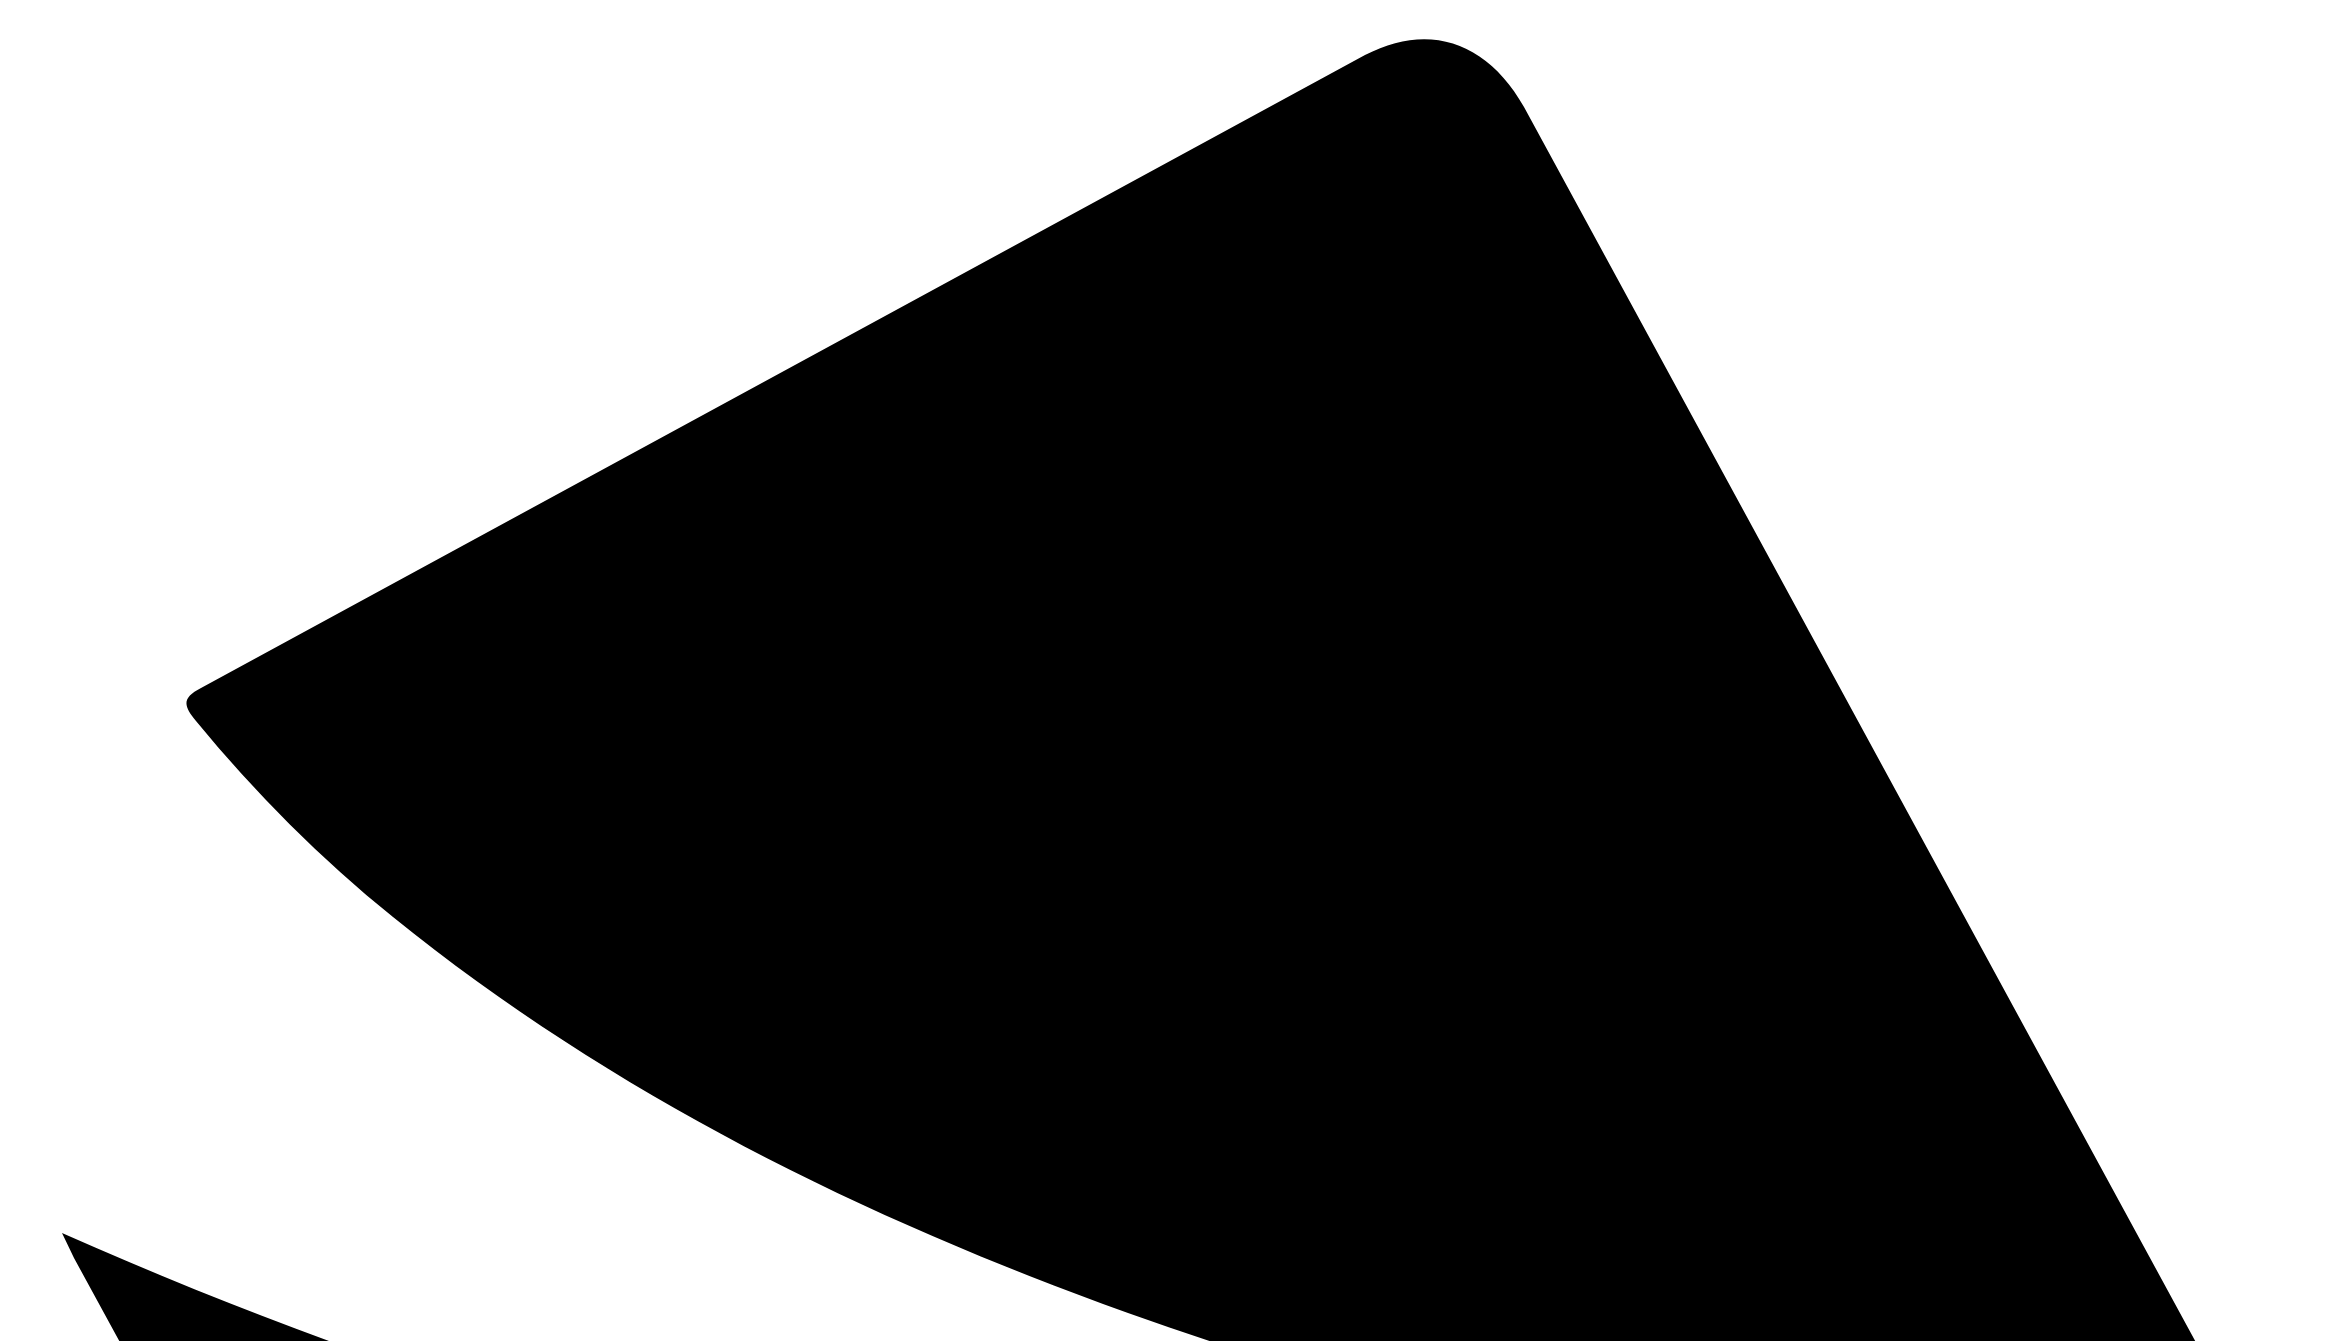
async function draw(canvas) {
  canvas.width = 2342;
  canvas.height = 1341;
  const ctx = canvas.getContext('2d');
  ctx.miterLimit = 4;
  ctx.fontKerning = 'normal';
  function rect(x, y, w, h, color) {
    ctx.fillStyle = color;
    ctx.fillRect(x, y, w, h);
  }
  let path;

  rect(0, 0, 2342, 1341, '#fff');
  ctx.fillStyle = '#000';
  path = new Path2D('M2273 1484L1524 107C1487 41 1428 22 1365 55L201 688C182 698 183 705 196 721C255 793 321 859 393 917C613 1095 864 1218 1128 1313C1468 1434 1818 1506 2179 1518H2251C2291 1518 2291 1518 2273 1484Z');
  ctx.fill(path);
  path = new Path2D('M74 1258L674 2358C716 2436 772 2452 851 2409L2216 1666C2225 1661 2235 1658 2242 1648C1490 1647 759 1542 62 1233Z');
  ctx.fill(path);
}

draw(document.querySelector('canvas'));
